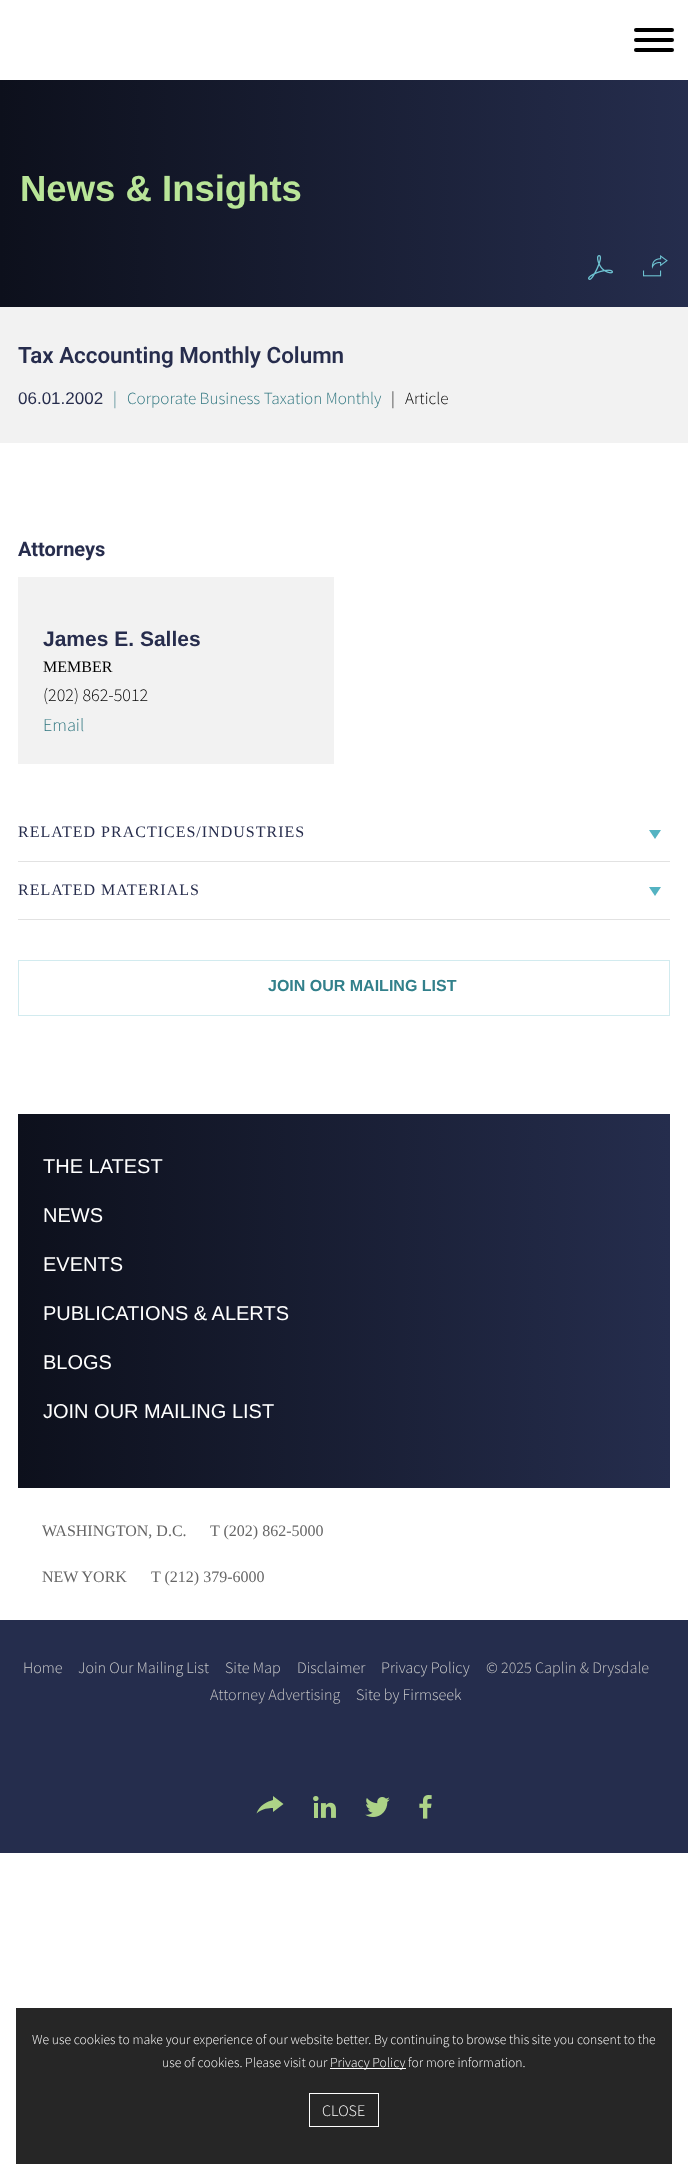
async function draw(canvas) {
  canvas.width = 688;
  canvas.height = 2164;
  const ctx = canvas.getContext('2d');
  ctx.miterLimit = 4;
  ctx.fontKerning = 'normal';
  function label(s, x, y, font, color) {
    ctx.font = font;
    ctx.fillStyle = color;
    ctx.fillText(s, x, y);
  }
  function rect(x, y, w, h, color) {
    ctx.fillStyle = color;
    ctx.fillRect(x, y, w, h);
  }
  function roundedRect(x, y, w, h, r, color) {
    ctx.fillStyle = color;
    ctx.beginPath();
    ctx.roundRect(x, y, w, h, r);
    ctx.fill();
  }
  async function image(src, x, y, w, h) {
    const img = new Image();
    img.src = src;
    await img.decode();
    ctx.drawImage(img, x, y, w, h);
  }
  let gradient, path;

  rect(0, 0, 688, 2164, '#fff');
  roundedRect(634, 28, 40, 4, 2, '#000');
  roundedRect(634, 38, 40, 4, 2, '#000');
  roundedRect(634, 48, 40, 4, 2, '#000');
  gradient = ctx.createLinearGradient(0, 194, 688, 193);
  gradient.addColorStop(0, '#0d101c');
  gradient.addColorStop(1, '#252d4d');
  ctx.fillStyle = gradient;
  ctx.fillRect(0, 80, 688, 227);
  label('News & Insights', 20, 201, 'bold 36.5px Liberation Sans', '#b9e598');
  await image('assets/img1.png', 588, 255, 25, 25);
  await image('assets/img2.png', 643, 255, 25, 22);
  rect(0, 307, 688, 136, '#f2f2f2');
  label('Tax Accounting Monthly Column', 18, 363, '600 22.4px Roboto', '#272d4d');
  label('06.01.2002', 18, 404, '17px Liberation Sans', '#272d4d');
  label('|', 113, 404, '300 17px Source Sans Pro', '#2e757f');
  label('Corporate Business Taxation Monthly', 127, 404, '300 17px Source Sans Pro', '#2e757f');
  label('|', 391, 404, '300 17px Source Sans Pro', '#000');
  label('Article', 405, 404, '300 17px Source Sans Pro', '#000');
  label('Attorneys', 18, 556, 'bold 20px Roboto', '#272d4d');
  rect(18, 577, 316, 187, '#f2f2f2');
  label('James E. Salles', 43, 646, 'bold 21px Liberation Sans', '#272d4d');
  label('MEMBER', 43, 672, '16px Liberation Serif', '#000');
  label('(202) 862-5012', 43, 701, '300 18px Source Sans Pro', '#000');
  label('Email', 43, 731, '300 18px Source Sans Pro', '#2e757f');
  rect(18, 861, 652, 1, '#e2e2e2');
  ctx.letterSpacing = '1px';
  label('RELATED PRACTICES/INDUSTRIES', 18, 837, '16px Liberation Serif', '#272d4d');
  ctx.fillStyle = '#54b3c2';
  path = new Path2D('M649 830H661L655 839Z');
  ctx.fill(path);
  rect(18, 919, 652, 1, '#e2e2e2');
  label('RELATED MATERIALS', 18, 895, '16px Liberation Serif', '#272d4d');
  ctx.fillStyle = '#54b3c2';
  path = new Path2D('M649 887H661L655 896Z');
  ctx.fill(path);
  ctx.strokeStyle = '#d2ebef';
  ctx.strokeRect(18.5, 960.5, 651, 55);
  ctx.letterSpacing = '0px';
  label('JOIN OUR MAILING LIST', 268, 991, 'bold 16px Liberation Sans', '#32808b');
  gradient = ctx.createLinearGradient(18, 1301, 670, 1301);
  gradient.addColorStop(0, '#0d101c');
  gradient.addColorStop(1, '#252d4d');
  ctx.fillStyle = gradient;
  ctx.fillRect(18, 1114, 652, 374);
  label('THE LATEST', 43, 1173, '20px Liberation Sans', '#fff');
  label('NEWS', 43, 1222, '20px Liberation Sans', '#fff');
  label('EVENTS', 43, 1271, '20px Liberation Sans', '#fff');
  label('PUBLICATIONS & ALERTS', 43, 1320, '20px Liberation Sans', '#fff');
  label('BLOGS', 43, 1369, '20px Liberation Sans', '#fff');
  label('JOIN OUR MAILING LIST', 43, 1418, '20px Liberation Sans', '#fff');
  label('WASHINGTON, D.C.', 42, 1536, '16px Liberation Serif', '#666');
  label('T (202) 862-5000', 210, 1536, '16px Liberation Serif', '#666');
  label('NEW YORK', 42, 1582, '16px Liberation Serif', '#666');
  label('T (212) 379-6000', 151, 1582, '16px Liberation Serif', '#666');
  rect(0, 1620, 688, 233, '#252d4d');
  label('Home', 23, 1673, '300 16px Source Sans Pro', '#ccc');
  label('Join Our Mailing List', 78, 1673, '300 16px Source Sans Pro', '#ccc');
  label('Site Map', 225, 1673, '300 16px Source Sans Pro', '#ccc');
  label('Disclaimer', 297, 1673, '300 16px Source Sans Pro', '#ccc');
  label('Privacy Policy', 381, 1673, '300 16px Source Sans Pro', '#ccc');
  label('© 2025 Caplin & Drysdale', 486, 1673, '300 16px Source Sans Pro', '#c5c4c4');
  label('Attorney Advertising', 210, 1700, '300 16px Source Sans Pro', '#c5c4c4');
  label('Site by Firmseek', 356, 1700, '300 16px Source Sans Pro', '#ccc');
  ctx.fillStyle = '#add387';
  path = new Path2D('M273 1796L283.5 1804L273 1812V1808C272.5 1808 263 1807.5 256.5 1813.5C259 1805.5 267.5 1801.5 273 1800Z');
  ctx.fill(path);
  await image('assets/img3.png', 313, 1796, 23, 22);
  await image('assets/img4.png', 365, 1797, 25, 20);
  await image('assets/img5.png', 419, 1795, 13, 24);
  rect(16, 2008, 656, 156, '#262626');
  label('We use cookies to make your experience of our website better. By continuing to browse this site you consent to the', 32, 2044, '300 13.6px Source Sans Pro', '#fff');
  label('use of cookies. Please visit our', 162, 2067, '300 13.6px Source Sans Pro', '#fff');
  rect(330, 2068, 76, 1, '#fff');
  label('Privacy Policy for more information.', 330, 2067, '300 13.6px Source Sans Pro', '#fff');
  ctx.strokeStyle = '#fff';
  ctx.strokeRect(309.5, 2093.5, 69, 33);
  label('CLOSE', 322, 2116, '300 16px Source Sans Pro', '#fff');
}

draw(document.querySelector('canvas'));
